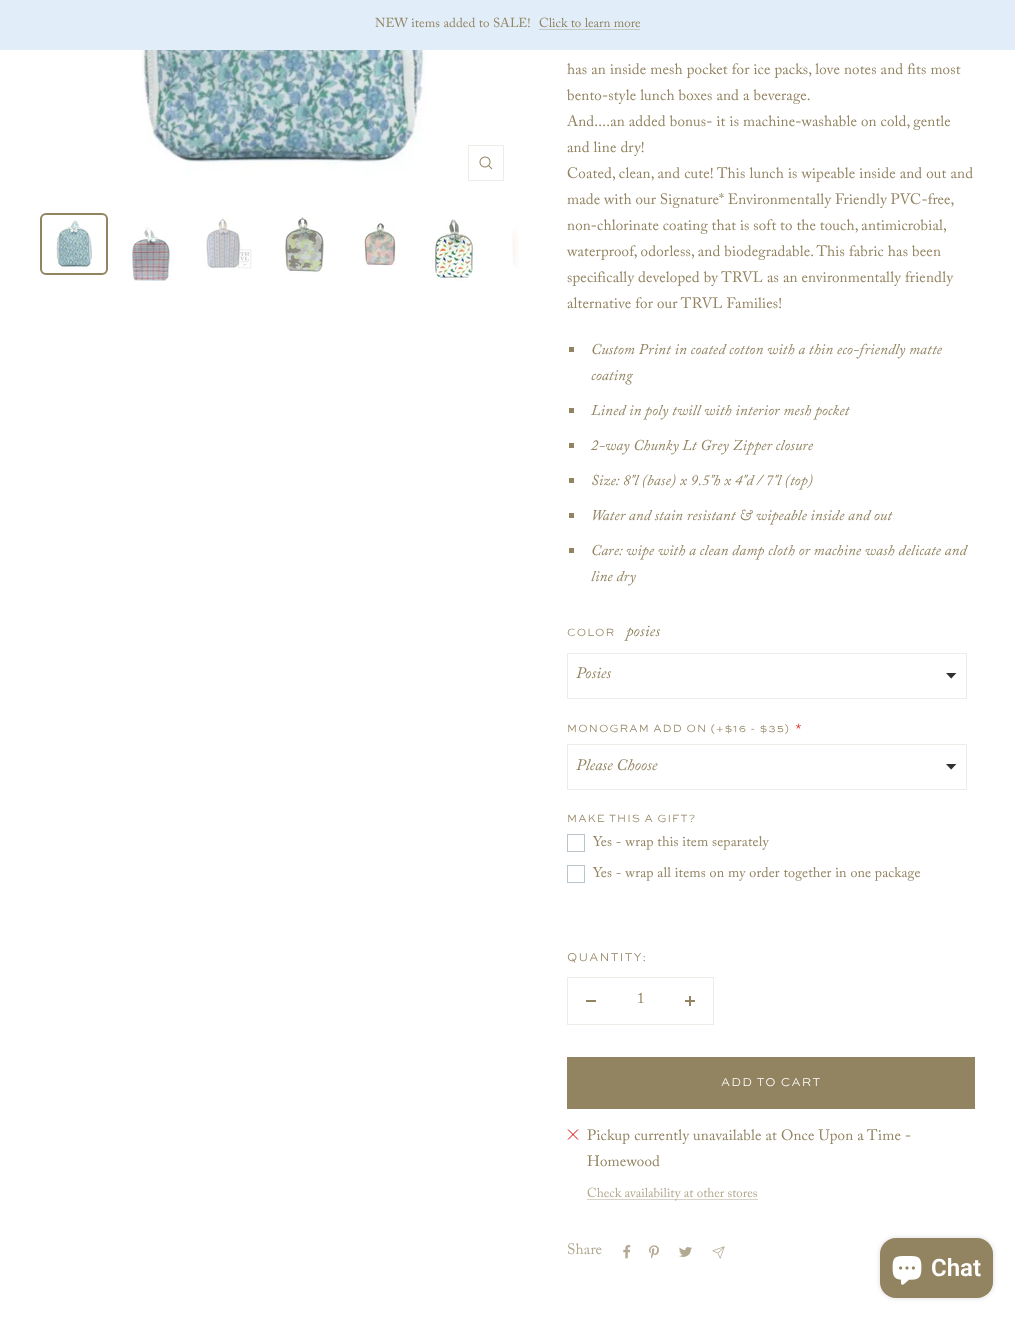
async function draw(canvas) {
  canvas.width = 1015;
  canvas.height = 1319;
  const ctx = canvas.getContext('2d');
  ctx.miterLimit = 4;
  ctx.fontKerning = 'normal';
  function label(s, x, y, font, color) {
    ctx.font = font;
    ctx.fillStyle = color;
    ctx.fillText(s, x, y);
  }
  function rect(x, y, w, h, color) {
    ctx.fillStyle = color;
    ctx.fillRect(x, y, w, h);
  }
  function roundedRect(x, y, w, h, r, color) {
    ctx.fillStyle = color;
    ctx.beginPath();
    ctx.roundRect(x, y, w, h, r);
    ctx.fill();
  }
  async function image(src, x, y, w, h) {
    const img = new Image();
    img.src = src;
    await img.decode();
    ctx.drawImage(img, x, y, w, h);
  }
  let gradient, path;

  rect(0, 0, 1015, 1319, '#fff');
  rect(0, 0, 1015, 50, '#e1eef9');
  ctx.letterSpacing = '0.1px';
  label('NEW items added to SALE!', 375, 27, '13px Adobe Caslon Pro', '#928361');
  ctx.letterSpacing = '0px';
  label('Click to learn more', 539, 27, '13px Adobe Caslon Pro', '#928361');
  rect(539, 29, 101, 1, '#c5c9c4');
  await image('assets/img1.png', 141, 50, 287, 126);
  ctx.strokeStyle = '#efece7';
  ctx.strokeRect(468.5, 145.5, 35, 35);
  await image('assets/img2.png', 479, 156, 14, 14);
  await image('assets/img3.png', 56, 219, 36, 52);
  ctx.beginPath();
  ctx.roundRect(41, 214, 66, 60, 5);
  ctx.strokeStyle = '#928361';
  ctx.lineWidth = 2;
  ctx.stroke();
  await image('assets/img4.png', 132, 226, 40, 55);
  await image('assets/img5.png', 204, 217, 48, 53);
  await image('assets/img6.png', 284, 217, 40, 57);
  await image('assets/img7.png', 364, 221, 32, 45);
  await image('assets/img8.png', 432, 219, 43, 62);
  await image('assets/img9.png', 508, 221, 12, 52);
  gradient = ctx.createLinearGradient(520, 256, 455, 256);
  gradient.addColorStop(0, '#fff');
  gradient.addColorStop(1, '#ffffff00');
  ctx.fillStyle = gradient;
  ctx.fillRect(456, 221, 64, 57);
  ctx.letterSpacing = '0.15px';
  label('has an inside mesh pocket for ice packs, love notes and fits most', 567, 74, '15px Adobe Caslon Pro', '#928361');
  label('bento-style lunch boxes and a beverage.', 567, 100, '15px Adobe Caslon Pro', '#928361');
  label('And....an added bonus- it is machine-washable on cold, gentle', 567, 126, '15px Adobe Caslon Pro', '#928361');
  label('and line dry!', 567, 152, '15px Adobe Caslon Pro', '#928361');
  label('Coated, clean, and cute! This lunch is wipeable inside and out and', 567, 178, '15px Adobe Caslon Pro', '#928361');
  ctx.wordSpacing = '-0.25px';
  label('made with our Signature* Environmentally Friendly PVC-free,', 567, 204, '15px Adobe Caslon Pro', '#928361');
  label('non-chlorinate coating that is soft to the touch, antimicrobial,', 567, 230, '15px Adobe Caslon Pro', '#928361');
  ctx.wordSpacing = '0px';
  label('waterproof, odorless, and biodegradable. This fabric has been', 567, 256, '15px Adobe Caslon Pro', '#928361');
  label('specifically developed by TRVL as an environmentally friendly', 567, 282, '15px Adobe Caslon Pro', '#928361');
  label('alternative for our TRVL Families!', 567, 308, '15px Adobe Caslon Pro', '#928361');
  rect(569, 347, 5, 5, '#928361');
  label('Custom Print in coated cotton with a thin eco-friendly matte', 591, 354, 'italic 15px Adobe Caslon Pro', '#928361');
  label('coating', 591, 380, 'italic 15px Adobe Caslon Pro', '#928361');
  rect(569, 408, 5, 5, '#928361');
  label('Lined in poly twill with interior mesh pocket', 591, 415, 'italic 15px Adobe Caslon Pro', '#928361');
  rect(569, 443, 5, 5, '#928361');
  label('2-way Chunky Lt Grey Zipper closure', 591, 450, 'italic 15px Adobe Caslon Pro', '#928361');
  rect(569, 478, 5, 5, '#928361');
  label('Size: 8"l (base) x 9.5"h x 4"d / 7"l (top)', 591, 485, 'italic 15px Adobe Caslon Pro', '#928361');
  rect(569, 513, 5, 5, '#928361');
  label('Water and stain resistant & wipeable inside and out', 591, 520, 'italic 15px Adobe Caslon Pro', '#928361');
  rect(569, 548, 5, 5, '#928361');
  label('Care: wipe with a clean damp cloth or machine wash delicate and', 591, 555, 'italic 15px Adobe Caslon Pro', '#928361');
  label('line dry', 591, 581, 'italic 15px Adobe Caslon Pro', '#928361');
  ctx.letterSpacing = '1.1px';
  label('COLOR', 567, 636, '300 11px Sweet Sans', '#928361');
  ctx.letterSpacing = '0.15px';
  label('posies', 626, 636, 'italic 16px Adobe Caslon Pro', '#928361');
  await image('assets/img10.png', 946, 673, 11, 6);
  ctx.strokeStyle = '#efece7';
  ctx.lineWidth = 1;
  ctx.strokeRect(567.5, 653.5, 399, 45);
  ctx.letterSpacing = '0px';
  label('Posies', 576, 678, 'italic 16px Adobe Caslon Pro', '#928361');
  ctx.letterSpacing = '1.1px';
  label('MONOGRAM ADD ON (+$16 - $35)', 567, 732, '300 11px Sweet Sans', '#928361');
  label('*', 795, 732, '300 12px Sweet Sans', '#e02b27');
  await image('assets/img10.png', 946, 764, 11, 6);
  ctx.strokeRect(567.5, 744.5, 399, 45);
  ctx.letterSpacing = '0px';
  label('Please Choose', 576, 770, 'italic 16px Adobe Caslon Pro', '#928361');
  ctx.letterSpacing = '1.1px';
  label('MAKE THIS A GIFT?', 567, 822, '300 11px Sweet Sans', '#928361');
  ctx.strokeStyle = '#b9c5cc';
  ctx.strokeRect(567.5, 834.5, 17, 17);
  ctx.letterSpacing = '0.15px';
  label('Yes - wrap this item separately', 593, 846, '14px Adobe Caslon Pro', '#928361');
  ctx.strokeRect(567.5, 865.5, 17, 17);
  label('Yes - wrap all items on my order together in one package', 593, 877, '14px Adobe Caslon Pro', '#928361');
  ctx.letterSpacing = '1.25px';
  label('QUANTITY:', 567, 961, '300 12px "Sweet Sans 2"', '#928361');
  ctx.strokeStyle = '#efece7';
  ctx.strokeRect(567.5, 977.5, 146, 47);
  rect(586, 1000, 10, 2, '#928361');
  ctx.letterSpacing = '0px';
  label('1', 637, 1003, '15px Adobe Caslon Pro', '#928361');
  await image('assets/img11.png', 685, 996, 10, 10);
  rect(567, 1057, 408, 52, '#928361');
  ctx.letterSpacing = '1.25px';
  label('ADD TO CART', 721, 1086, '300 12px Sweet Sans', '#fff');
  path = new Path2D('M568 1129.5L578 1139.5M568 1139.5L578 1129.5');
  ctx.strokeStyle = '#e00000';
  ctx.stroke(path);
  ctx.letterSpacing = '0.15px';
  label('Pickup currently unavailable at Once Upon a Time -', 587, 1140, '15px Adobe Caslon Pro', '#928361');
  label('Homewood', 587, 1166, '15px Adobe Caslon Pro', '#928361');
  rect(587, 1199, 171, 1, '#d9d4c8');
  ctx.letterSpacing = '0px';
  label('Check availability at other stores', 587, 1197, '13px Adobe Caslon Pro', '#b3a890');
  ctx.letterSpacing = '0.15px';
  label('Share', 567, 1254, '15px Adobe Caslon Pro', '#b3a890');
  await image('assets/img12.png', 623, 1245, 8, 14);
  await image('assets/img13.png', 649, 1245, 10, 14);
  await image('assets/img14.png', 679, 1247, 13, 10);
  await image('assets/img15.png', 712, 1246, 13, 13);
  ctx.fillStyle = '#00000026';
  ctx.filter = 'blur(2.5px)';
  ctx.beginPath();
  ctx.roundRect(880, 1238, 113, 60, 16);
  ctx.fill();
  ctx.filter = 'none';
  roundedRect(880, 1238, 113, 60, 16, '#928361');
  await image('assets/img16.png', 892, 1256, 30, 29);
  ctx.letterSpacing = '0px';
  label('Chat', 931, 1276, '600 24px Roboto', '#fff');
}

draw(document.querySelector('canvas'));
